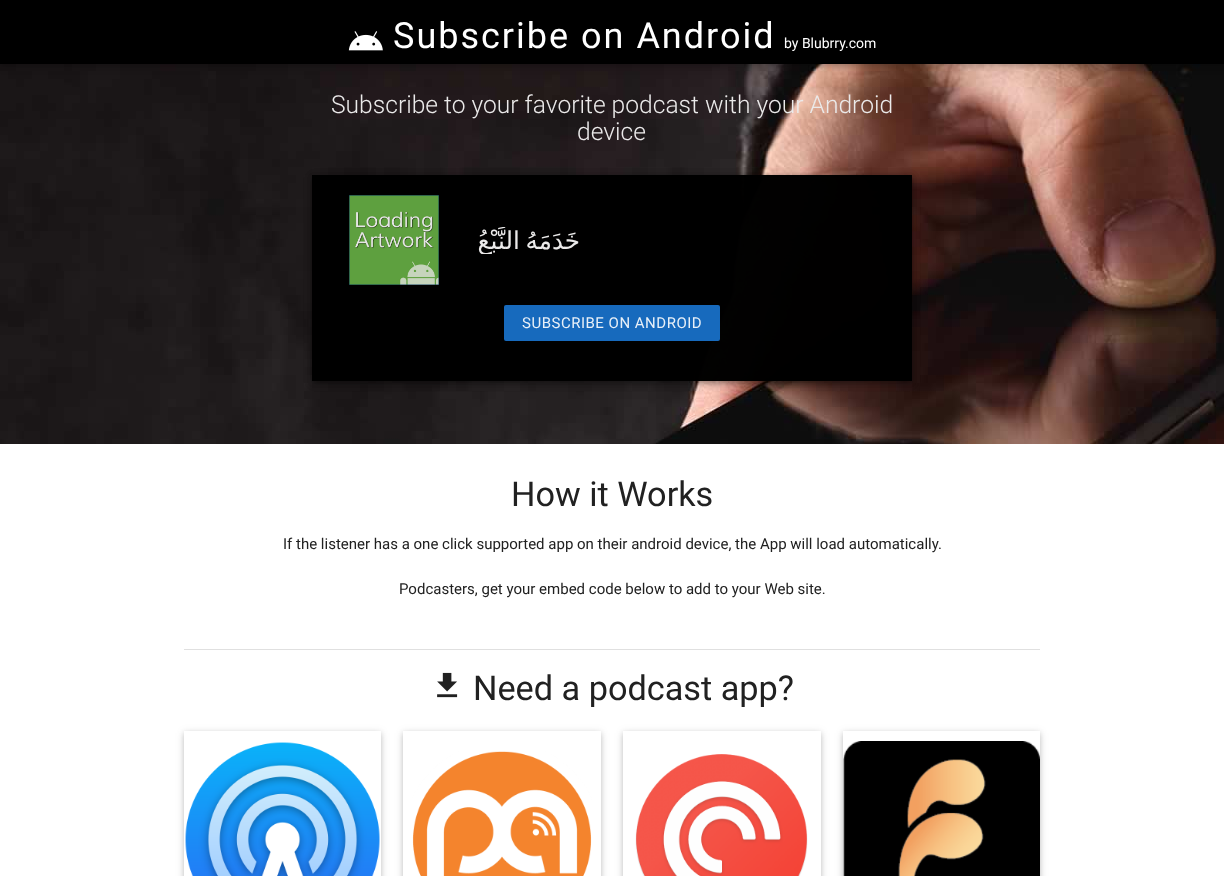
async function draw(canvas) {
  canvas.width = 1224;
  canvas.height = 876;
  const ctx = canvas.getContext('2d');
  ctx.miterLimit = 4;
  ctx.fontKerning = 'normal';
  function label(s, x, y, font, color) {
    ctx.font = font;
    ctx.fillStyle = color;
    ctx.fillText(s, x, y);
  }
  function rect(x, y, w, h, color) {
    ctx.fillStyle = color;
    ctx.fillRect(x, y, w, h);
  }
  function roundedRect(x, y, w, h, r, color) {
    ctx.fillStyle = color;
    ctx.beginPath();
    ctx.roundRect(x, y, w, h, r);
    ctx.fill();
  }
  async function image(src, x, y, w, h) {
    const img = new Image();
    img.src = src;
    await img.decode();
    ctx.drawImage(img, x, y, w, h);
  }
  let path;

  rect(0, 0, 1224, 876, '#fff');
  await image('assets/img2.png', 0, 64, 1224, 380);
  ctx.fillStyle = '#0000001f';
  ctx.filter = 'blur(5px)';
  ctx.beginPath();
  ctx.rect(0, 2, 1224, 64);
  ctx.fill();
  ctx.filter = 'none';
  ctx.fillStyle = '#00000029';
  ctx.filter = 'blur(2.5px)';
  ctx.beginPath();
  ctx.rect(0, 2, 1224, 64);
  ctx.fill();
  ctx.filter = 'none';
  rect(0, 0, 1224, 64, '#000');
  await image('assets/img1.png', 348, 31, 35, 20);
  ctx.letterSpacing = '2px';
  label('Subscribe on Android', 393, 48, '36px Roboto', '#fff');
  ctx.letterSpacing = '0px';
  label('by Blubrry.com', 784, 48, '14px Roboto', '#fff');
  label('Subscribe to your favorite podcast with your Android', 331, 113, '300 24.6px Roboto', '#ebeaea');
  label('device', 577, 140, '300 24.6px Roboto', '#ebeaea');
  ctx.save();
  path = new Path2D('M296 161H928V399H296ZM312 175H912V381H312Z');
  ctx.clip(path, 'evenodd');
  ctx.fillStyle = '#0000001c';
  ctx.filter = 'blur(5px)';
  ctx.beginPath();
  ctx.rect(312, 177, 600, 206);
  ctx.fill();
  ctx.filter = 'none';
  ctx.restore();
  ctx.save();
  path = new Path2D('M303 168H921V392H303ZM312 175H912V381H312Z');
  ctx.clip(path, 'evenodd');
  ctx.fillStyle = '#00000024';
  ctx.filter = 'blur(2.5px)';
  ctx.beginPath();
  ctx.rect(312, 177, 600, 206);
  ctx.fill();
  ctx.filter = 'none';
  ctx.restore();
  rect(312, 175, 600, 206, '#000000e6');
  ctx.save();
  path = new Path2D('M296 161H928V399H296ZM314 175H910C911 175 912 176 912 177V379C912 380 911 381 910 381H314C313 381 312 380 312 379V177C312 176 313 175 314 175Z');
  ctx.clip(path, 'evenodd');
  ctx.fillStyle = '#0000001c';
  ctx.filter = 'blur(5px)';
  ctx.beginPath();
  ctx.roundRect(312, 177, 600, 206, 2);
  ctx.fill();
  ctx.filter = 'none';
  ctx.restore();
  ctx.save();
  path = new Path2D('M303 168H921V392H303ZM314 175H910C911 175 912 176 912 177V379C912 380 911 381 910 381H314C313 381 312 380 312 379V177C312 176 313 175 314 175Z');
  ctx.clip(path, 'evenodd');
  ctx.fillStyle = '#00000024';
  ctx.filter = 'blur(2.5px)';
  ctx.beginPath();
  ctx.roundRect(312, 177, 600, 206, 2);
  ctx.fill();
  ctx.filter = 'none';
  ctx.restore();
  roundedRect(312, 175, 600, 206, 2, '#000000e6');
  await image('assets/img3.png', 349, 195, 90, 90);
  ctx.save();
  ctx.beginPath();
  ctx.rect(478, 227, 414, 27);
  ctx.clip();
  ctx.wordSpacing = '-2px';
  ctx.direction = 'rtl';
  label('خَدَمَهُ النَّبْعُ', 580, 249, '24.6px DejaVu Sans', '#ebeaea');
  ctx.restore();
  roundedRect(504, 305, 216, 36, 2, '#176abd');
  ctx.letterSpacing = '0.5px';
  label('SUBSCRIBE ON ANDROID', 522, 328, '15px Roboto', '#e8f0f8');
  ctx.letterSpacing = '0px';
  label('How it Works', 511, 506, '34.25px Roboto', '#212121');
  label('If the listener has a one click supported app on their android device, the App will load automatically.', 283, 549, '15px Roboto', '#212121');
  label('Podcasters, get your embed code below to add to your Web site.', 399, 594, '15px Roboto', '#212121');
  rect(184, 649, 856, 1, '#e0e0e0');
  await image('assets/img4.png', 437, 672, 21, 26);
  label('Need a podcast app?', 473, 700, '34.25px Roboto', '#212121');
  ctx.save();
  path = new Path2D('M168 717H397V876H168ZM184 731H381V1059H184Z');
  ctx.clip(path, 'evenodd');
  ctx.fillStyle = '#0000001f';
  ctx.filter = 'blur(5px)';
  ctx.beginPath();
  ctx.rect(184, 733, 197, 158);
  ctx.fill();
  ctx.filter = 'none';
  ctx.restore();
  ctx.save();
  path = new Path2D('M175 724H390V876H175ZM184 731H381V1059H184Z');
  ctx.clip(path, 'evenodd');
  ctx.fillStyle = '#00000029';
  ctx.filter = 'blur(2.5px)';
  ctx.beginPath();
  ctx.rect(184, 733, 197, 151);
  ctx.fill();
  ctx.filter = 'none';
  ctx.restore();
  await image('assets/img5.png', 185, 742, 195, 134);
  ctx.save();
  path = new Path2D('M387 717H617V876H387ZM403 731H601V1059H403Z');
  ctx.clip(path, 'evenodd');
  ctx.fillStyle = '#0000001f';
  ctx.filter = 'blur(5px)';
  ctx.beginPath();
  ctx.rect(403, 733, 198, 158);
  ctx.fill();
  ctx.filter = 'none';
  ctx.restore();
  ctx.save();
  path = new Path2D('M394 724H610V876H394ZM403 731H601V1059H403Z');
  ctx.clip(path, 'evenodd');
  ctx.fillStyle = '#00000029';
  ctx.filter = 'blur(2.5px)';
  ctx.beginPath();
  ctx.rect(403, 733, 198, 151);
  ctx.fill();
  ctx.filter = 'none';
  ctx.restore();
  await image('assets/img6.png', 412, 751, 180, 125);
  ctx.save();
  path = new Path2D('M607 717H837V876H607ZM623 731H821V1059H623Z');
  ctx.clip(path, 'evenodd');
  ctx.fillStyle = '#0000001f';
  ctx.filter = 'blur(5px)';
  ctx.beginPath();
  ctx.rect(623, 733, 198, 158);
  ctx.fill();
  ctx.filter = 'none';
  ctx.restore();
  ctx.save();
  path = new Path2D('M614 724H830V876H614ZM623 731H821V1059H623Z');
  ctx.clip(path, 'evenodd');
  ctx.fillStyle = '#00000029';
  ctx.filter = 'blur(2.5px)';
  ctx.beginPath();
  ctx.rect(623, 733, 198, 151);
  ctx.fill();
  ctx.filter = 'none';
  ctx.restore();
  await image('assets/img7.png', 635, 754, 173, 122);
  ctx.save();
  path = new Path2D('M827 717H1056V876H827ZM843 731H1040V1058H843Z');
  ctx.clip(path, 'evenodd');
  ctx.fillStyle = '#0000001f';
  ctx.filter = 'blur(5px)';
  ctx.beginPath();
  ctx.rect(843, 733, 197, 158);
  ctx.fill();
  ctx.filter = 'none';
  ctx.restore();
  ctx.save();
  path = new Path2D('M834 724H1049V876H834ZM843 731H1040V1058H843Z');
  ctx.clip(path, 'evenodd');
  ctx.fillStyle = '#00000029';
  ctx.filter = 'blur(2.5px)';
  ctx.beginPath();
  ctx.rect(843, 733, 197, 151);
  ctx.fill();
  ctx.filter = 'none';
  ctx.restore();
  await image('assets/img8.png', 843, 741, 197, 135);
}

draw(document.querySelector('canvas'));
